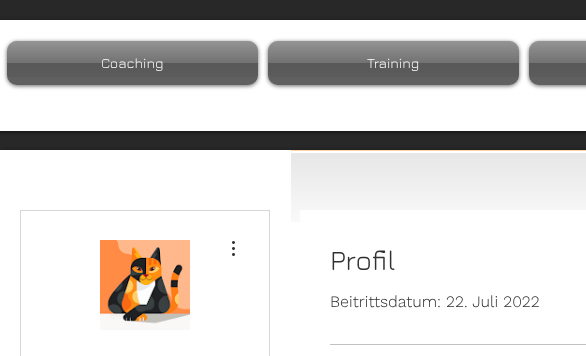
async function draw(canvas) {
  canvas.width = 586;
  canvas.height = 356;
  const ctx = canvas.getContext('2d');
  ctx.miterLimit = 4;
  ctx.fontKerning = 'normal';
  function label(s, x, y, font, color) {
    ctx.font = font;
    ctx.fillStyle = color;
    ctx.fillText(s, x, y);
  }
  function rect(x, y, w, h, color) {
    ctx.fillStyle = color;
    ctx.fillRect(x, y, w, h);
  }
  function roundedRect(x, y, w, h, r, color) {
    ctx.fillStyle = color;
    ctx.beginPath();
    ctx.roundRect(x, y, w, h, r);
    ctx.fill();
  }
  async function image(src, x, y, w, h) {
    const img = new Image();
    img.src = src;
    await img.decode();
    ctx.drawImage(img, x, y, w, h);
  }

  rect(0, 0, 586, 356, '#282828');
  ctx.fillStyle = '#00000099';
  ctx.filter = 'blur(2px)';
  ctx.beginPath();
  ctx.roundRect(-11, 21, 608, 111, 5);
  ctx.fill();
  ctx.filter = 'none';
  rect(0, 20, 586, 111, '#fff');
  ctx.fillStyle = '#00000099';
  ctx.filter = 'blur(2px)';
  ctx.beginPath();
  ctx.roundRect(7, 42, 251, 44, 10);
  ctx.fill();
  ctx.filter = 'none';
  roundedRect(7, 41, 251, 44, 10, '#616060');
  await image('assets/img1.png', 7, 41, 251, 36);
  label('Coaching', 101, 68, '14px Jura', '#fff');
  ctx.fillStyle = '#00000099';
  ctx.filter = 'blur(2px)';
  ctx.beginPath();
  ctx.roundRect(268, 42, 251, 44, 10);
  ctx.fill();
  ctx.filter = 'none';
  roundedRect(268, 41, 251, 44, 10, '#616060');
  await image('assets/img2.png', 268, 41, 251, 36);
  label('Training', 367, 68, '14px Jura', '#fff');
  ctx.fillStyle = '#00000099';
  ctx.filter = 'blur(2px)';
  ctx.beginPath();
  ctx.roundRect(529, 42, 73, 44, 10);
  ctx.fill();
  ctx.filter = 'none';
  roundedRect(529, 41, 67, 44, 10, '#616060');
  await image('assets/img3.png', 529, 41, 57, 36);
  ctx.fillStyle = '#00000099';
  ctx.filter = 'blur(2px)';
  ctx.beginPath();
  ctx.roundRect(0, 151, 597, 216, 5);
  ctx.fill();
  ctx.filter = 'none';
  rect(291, 151, 295, 205, '#fff');
  await image('assets/img6.png', 291, 153, 295, 69);
  ctx.strokeStyle = '#ffd6aa';
  ctx.strokeRect(0.5, 150.5, 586, 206);
  rect(0, 150, 291, 206, '#fff');
  ctx.strokeStyle = '#d6d6d6';
  ctx.strokeRect(20.5, 210.5, 249, 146);
  await image('assets/img4.png', 100, 240, 90, 90);
  await image('assets/img5.png', 232, 241, 3, 15);
  rect(300, 210, 286, 12, '#fff');
  label('Profil', 330, 270, '28px Jura', '#303030');
  label('Beitrittsdatum: 22. Juli 2022', 330, 307, '300 16px Work Sans', '#303030');
  rect(330, 344, 256, 1, '#c1c1c1');
}

draw(document.querySelector('canvas'));
